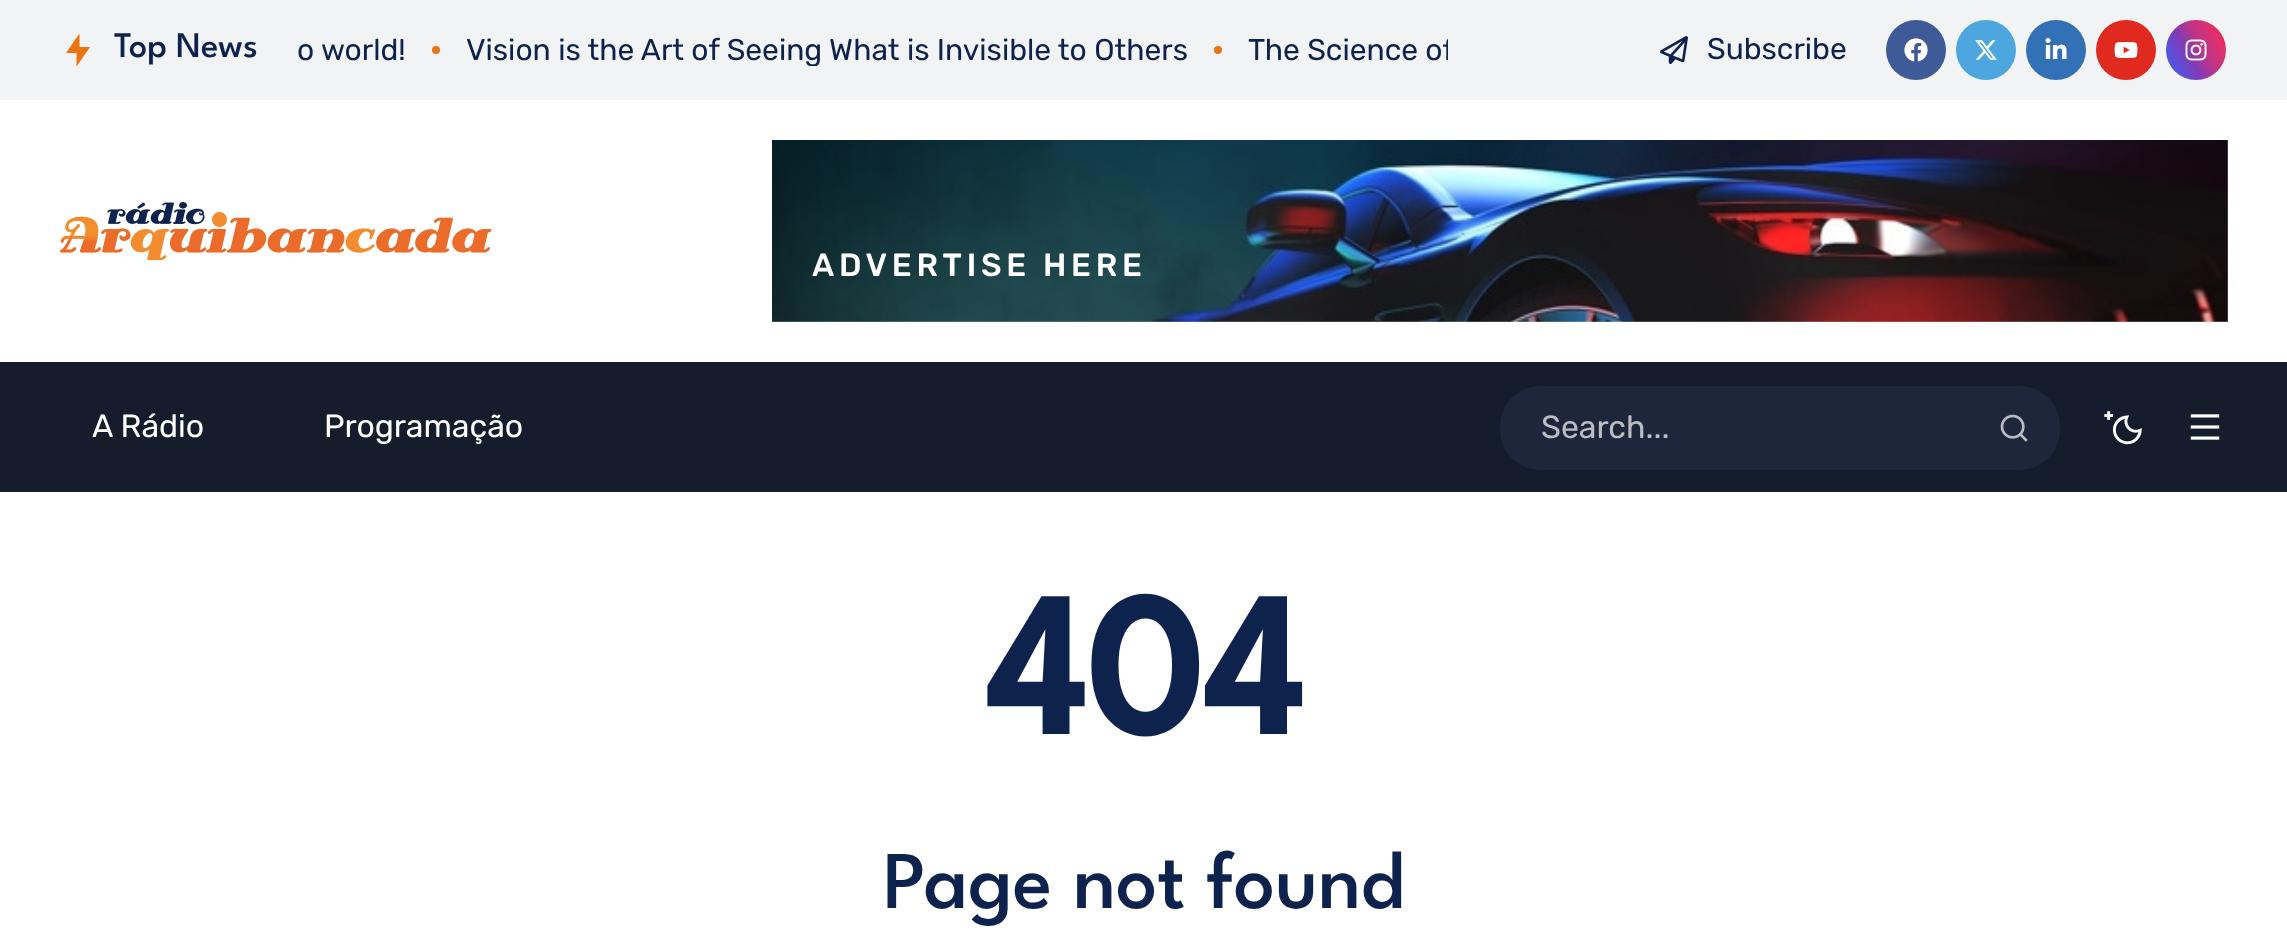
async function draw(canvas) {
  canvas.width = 2287;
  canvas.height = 944;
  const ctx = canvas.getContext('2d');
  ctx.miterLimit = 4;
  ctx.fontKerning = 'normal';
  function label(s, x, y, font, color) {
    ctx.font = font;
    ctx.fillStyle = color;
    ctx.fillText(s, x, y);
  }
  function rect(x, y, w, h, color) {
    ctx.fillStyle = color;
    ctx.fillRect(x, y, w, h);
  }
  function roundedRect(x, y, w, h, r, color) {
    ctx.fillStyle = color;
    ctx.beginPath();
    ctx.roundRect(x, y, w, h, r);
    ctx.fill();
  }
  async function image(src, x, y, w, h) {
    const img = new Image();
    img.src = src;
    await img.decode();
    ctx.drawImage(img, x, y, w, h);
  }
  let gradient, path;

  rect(0, 0, 2287, 944, '#fff');
  rect(0, 0, 2287, 100, '#f2f3f5');
  ctx.fillStyle = '#eb7310';
  path = new Path2D('M79.5 47H90L76.5 66.5V53H66L79.5 33.5Z');
  ctx.fill(path);
  label('Top News', 114, 57, '100 36px League Spartan', '#0d224c');
  label('o world!', 297, 60, '30px Rubik', '#0d224c');
  ctx.fillStyle = '#eb7310';
  ctx.beginPath();
  ctx.arc(436, 50, 4, 0, 2 * Math.PI);
  ctx.fill();
  ctx.save();
  ctx.beginPath();
  ctx.rect(298, 36, 1150, 30);
  ctx.clip();
  label('Vision is the Art of Seeing What is Invisible to Others', 466, 60, '30px Rubik', '#0d224c');
  ctx.restore();
  ctx.beginPath();
  ctx.arc(1218, 50, 4, 0, 2 * Math.PI);
  ctx.fill();
  ctx.save();
  ctx.beginPath();
  ctx.rect(298, 36, 1150, 30);
  ctx.clip();
  label('The Science of', 1248, 60, '30px Rubik', '#0d224c');
  ctx.restore();
  await image('assets/img1.png', 1660, 36, 28, 28);
  label('Subscribe', 1707, 59, '30px Rubik', '#0d224c');
  ctx.fillStyle = '#3e5b98';
  ctx.beginPath();
  ctx.arc(1916, 50, 30, 0, 2 * Math.PI);
  ctx.fill();
  await image('assets/img2.png', 1904, 38, 24, 24);
  ctx.fillStyle = '#4da7de';
  ctx.beginPath();
  ctx.arc(1986, 50, 30, 0, 2 * Math.PI);
  ctx.fill();
  await image('assets/img3.png', 1975, 40, 22, 20);
  ctx.fillStyle = '#3371b7';
  ctx.beginPath();
  ctx.arc(2056, 50, 30, 0, 2 * Math.PI);
  ctx.fill();
  await image('assets/img4.png', 2045, 38, 22, 21);
  ctx.fillStyle = '#e02a20';
  ctx.beginPath();
  ctx.arc(2126, 50, 30, 0, 2 * Math.PI);
  ctx.fill();
  await image('assets/img5.png', 2114, 42, 24, 16);
  gradient = ctx.createLinearGradient(2160, 70, 2232, 30);
  gradient.addColorStop(0, '#405de6');
  gradient.addColorStop(0.2, '#5851db');
  gradient.addColorStop(0.4, '#833ab4');
  gradient.addColorStop(0.6, '#c13584');
  gradient.addColorStop(0.8, '#e1306c');
  gradient.addColorStop(1, '#fd1d1d');
  ctx.fillStyle = gradient;
  ctx.beginPath();
  ctx.arc(2196, 50, 30, 0, 2 * Math.PI);
  ctx.fill();
  await image('assets/img6.png', 2185, 39, 22, 22);
  await image('assets/img7.png', 60, 202, 432, 58);
  rect(772, 140, 1456, 182, '#f3f3f3');
  await image('assets/img8.png', 772, 140, 1456, 182);
  ctx.letterSpacing = '4.75px';
  label('ADVERTISE HERE', 812, 276, '500 32px Rubik', '#fff');
  rect(0, 362, 2287, 130, '#151c2b');
  ctx.letterSpacing = '0px';
  label('A Rádio', 92, 437, '32px Rubik', '#fff');
  label('Programação', 324, 437, '32px Rubik', '#fff');
  roundedRect(1500, 386, 560, 84, 40, '#1d263a');
  label('Search...', 1541, 438, '32px Rubik', '#bbbdc3');
  await image('assets/img9.png', 2000, 414, 28, 28);
  await image('assets/img10.png', 2104, 411, 38, 34);
  await image('assets/img11.png', 2190, 414, 30, 26);
  label('404', 985, 734, 'bold 200px League Spartan', '#0d224c');
  label('Page not found', 883, 908, '100 82px League Spartan', '#0d224c');
}

draw(document.querySelector('canvas'));
